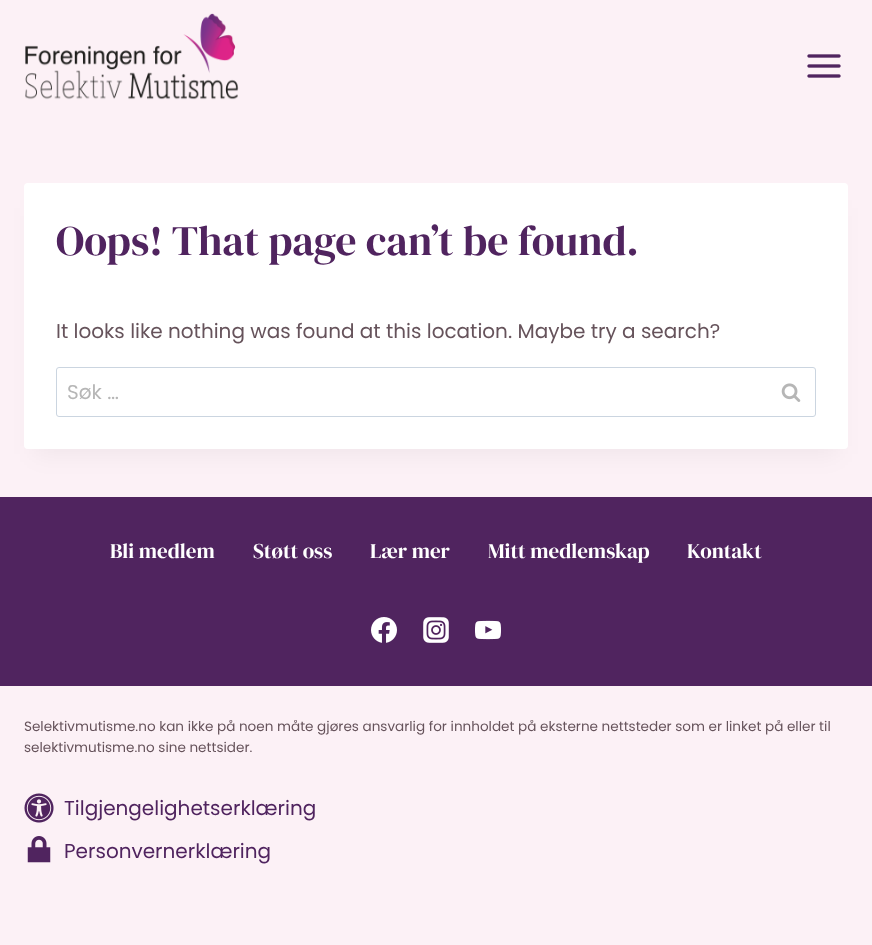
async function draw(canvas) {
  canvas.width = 872;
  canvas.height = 945;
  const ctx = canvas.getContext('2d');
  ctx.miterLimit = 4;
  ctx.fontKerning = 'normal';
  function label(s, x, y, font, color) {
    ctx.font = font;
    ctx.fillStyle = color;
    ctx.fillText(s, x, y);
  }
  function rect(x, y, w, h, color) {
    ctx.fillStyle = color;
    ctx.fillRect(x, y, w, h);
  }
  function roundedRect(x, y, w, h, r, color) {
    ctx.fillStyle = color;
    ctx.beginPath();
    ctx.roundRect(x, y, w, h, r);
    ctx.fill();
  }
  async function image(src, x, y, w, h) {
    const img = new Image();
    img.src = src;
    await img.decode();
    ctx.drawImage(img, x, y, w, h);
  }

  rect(0, 0, 872, 945, '#fcf1f6');
  await image('assets/img1.png', 25, 13, 214, 87);
  await image('assets/img2.png', 807, 54, 34, 24);
  ctx.fillStyle = '#0000000d';
  ctx.filter = 'blur(12.5px)';
  ctx.beginPath();
  ctx.rect(34, 208, 804, 246);
  ctx.fill();
  ctx.filter = 'none';
  roundedRect(24, 183, 824, 266, 4, '#fff');
  label('Oops! That page can’t be found.', 56, 255, '42px DM Serif Display', '#50245f');
  label('It looks like nothing was found at this location. Maybe try a search?', 56, 338, '20px Poppins', '#66535b');
  ctx.beginPath();
  ctx.roundRect(56.5, 367.5, 759, 49, 2.5);
  ctx.strokeStyle = '#cbd5e0';
  ctx.stroke();
  label('Søk …', 67, 399, '20px Poppins', '#b6b6b6');
  await image('assets/img3.png', 781, 383, 20, 19);
  rect(0, 497, 872, 189, '#50245f');
  label('Bli medlem', 110, 558, '21px DM Serif Display', '#fff');
  label('Støtt oss', 253, 558, '21px DM Serif Display', '#fff');
  label('Lær mer', 370, 558, '21px DM Serif Display', '#fff');
  label('Mitt medlemskap', 488, 558, '21px DM Serif Display', '#fff');
  label('Kontakt', 687, 558, '21px DM Serif Display', '#fff');
  await image('assets/img4.png', 371, 617, 26, 26);
  await image('assets/img5.png', 423, 617, 26, 26);
  await image('assets/img6.png', 475, 620, 26, 20);
  label('Selektivmutisme.no kan ikke på noen måte gjøres ansvarlig for innholdet på eksterne nettsteder som er linket på eller til', 24, 731, '13.57px Poppins', '#66535b');
  label('selektivmutisme.no sine nettsider.', 24, 752, '13.57px Poppins', '#66535b');
  await image('assets/img7.png', 24, 793, 30, 30);
  label('Tilgjengelighetserklæring', 64, 815, '20px Poppins', '#50245f');
  await image('assets/img8.png', 27, 836, 24, 27);
  label('Personvernerklæring', 64, 858, '20px Poppins', '#50245f');
}

draw(document.querySelector('canvas'));
